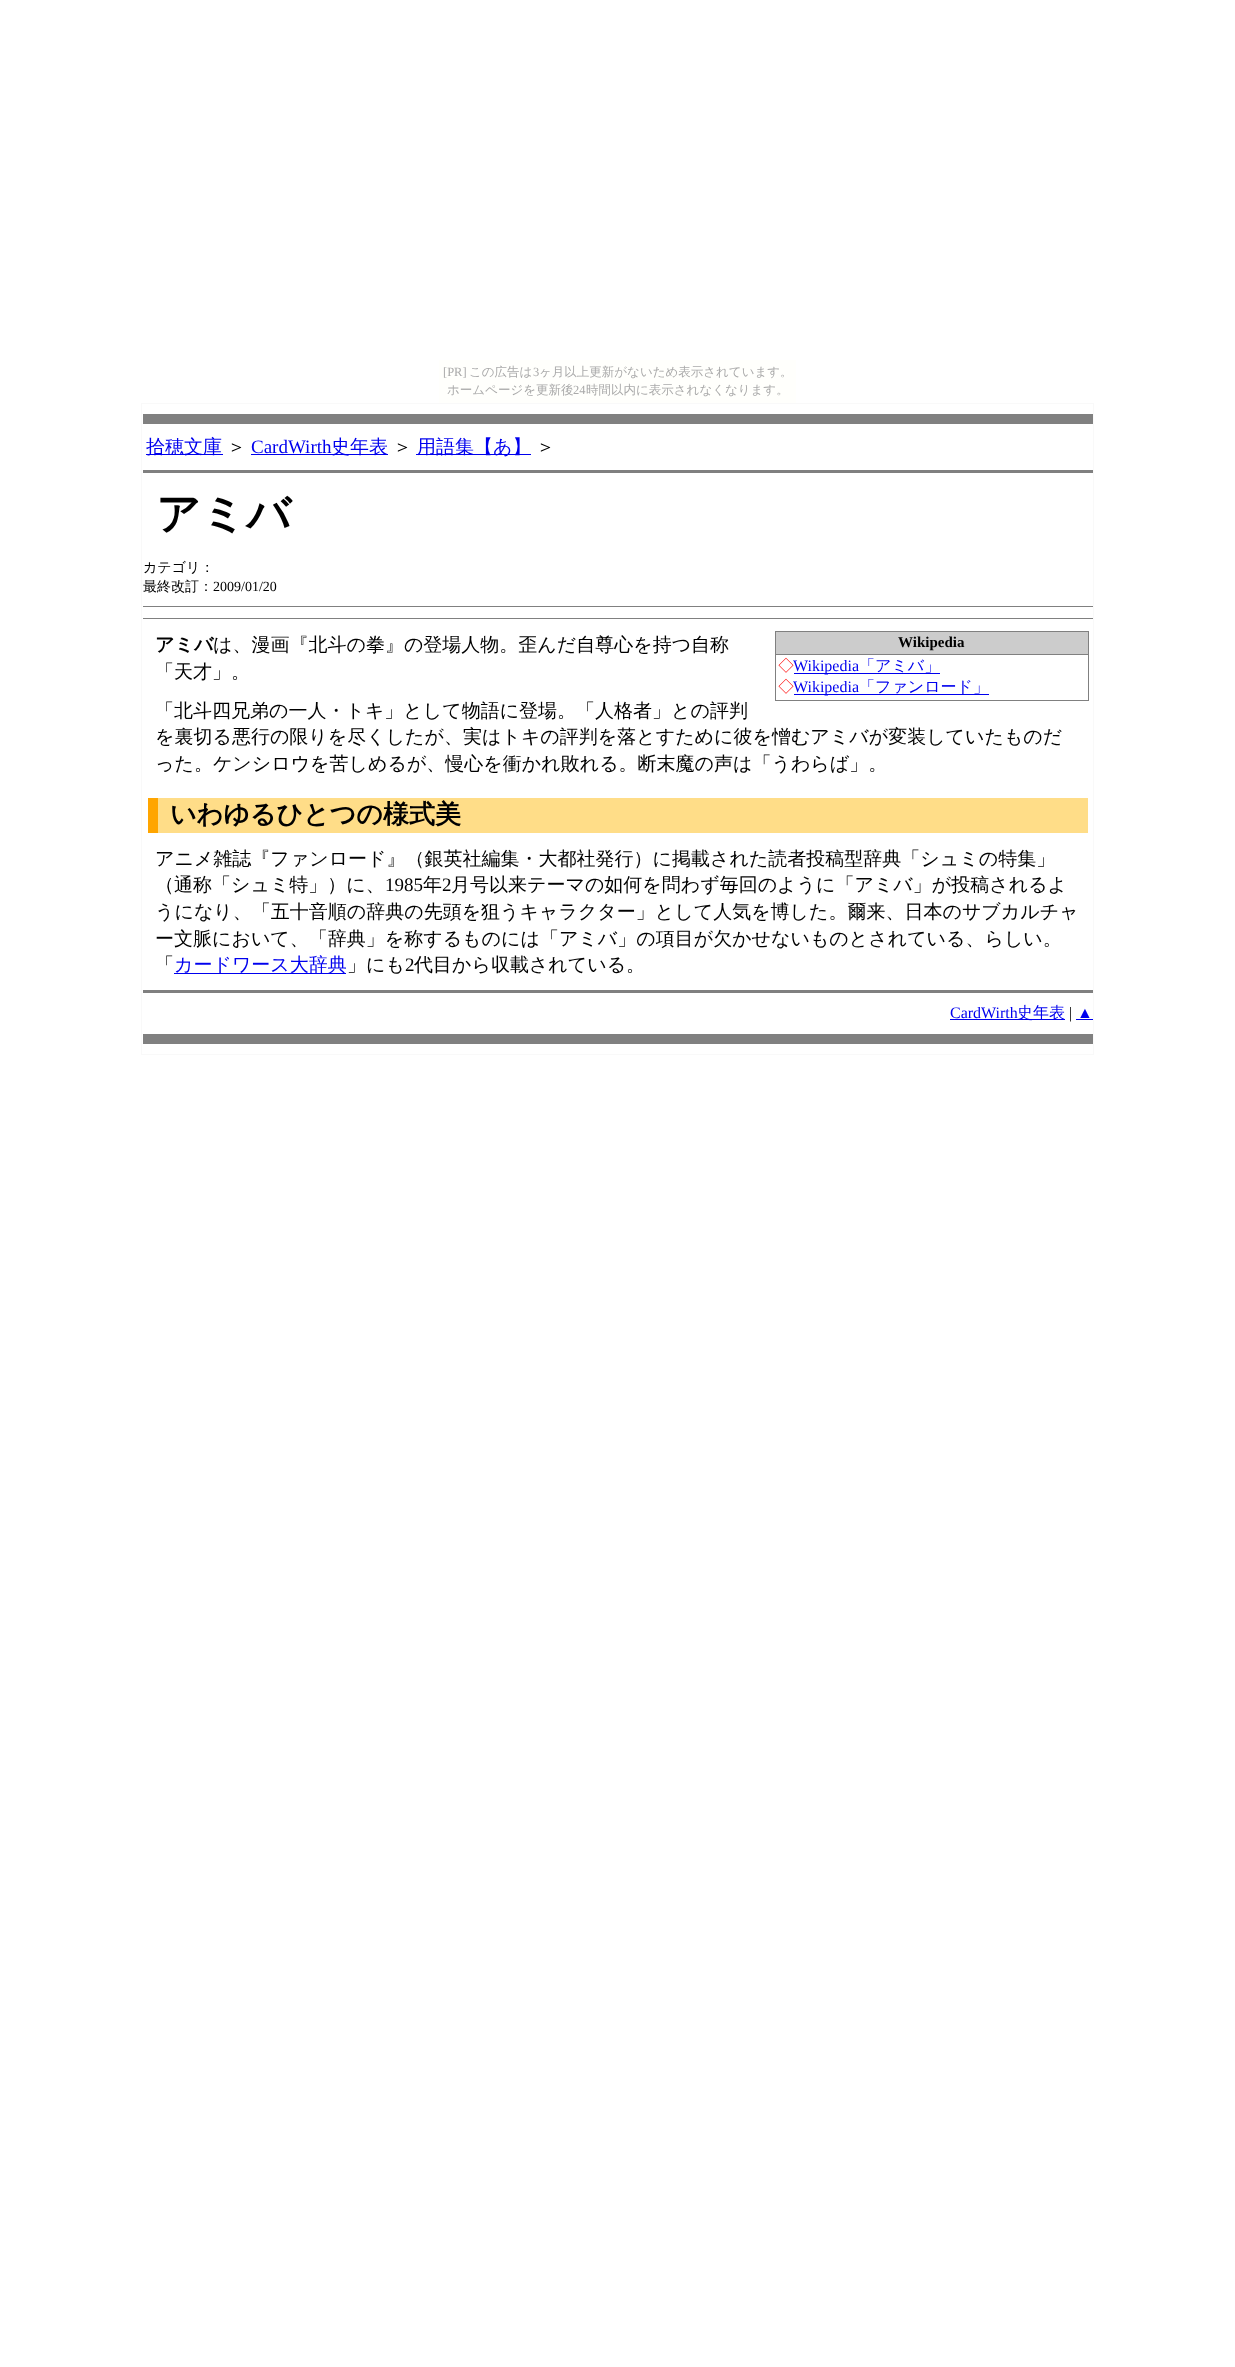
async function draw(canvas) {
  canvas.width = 1235;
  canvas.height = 2367;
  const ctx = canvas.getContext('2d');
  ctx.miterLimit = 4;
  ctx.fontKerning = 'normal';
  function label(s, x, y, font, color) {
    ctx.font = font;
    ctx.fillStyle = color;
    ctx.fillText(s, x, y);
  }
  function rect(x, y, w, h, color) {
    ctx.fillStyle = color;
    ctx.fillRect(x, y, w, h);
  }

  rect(0, 0, 1235, 2367, '#fff');
  rect(439, 360, 357, 43, '#fffffc');
  label('[PR]', 443, 376, '12.5px Liberation Serif', '#aaa');
  label('この広告は', 469, 376, '500 12.5px WenQuanYi Zen Hei', '#aaa');
  label('3', 533, 376, '12.5px Liberation Serif', '#aaa');
  label('ヶ月以上更新がないため表示されています。', 539, 376, '500 12.5px WenQuanYi Zen Hei', '#aaa');
  label('ホームページを更新後', 447, 394, '500 12.5px WenQuanYi Zen Hei', '#aaa');
  label('24', 573, 394, '12.5px Liberation Serif', '#aaa');
  label('時間以内に表示されなくなります。', 586, 394, '500 12.5px WenQuanYi Zen Hei', '#aaa');
  ctx.strokeStyle = '#f9f9f9';
  ctx.strokeRect(141.5, 403.5, 952, 651);
  rect(143, 414, 950, 10, '#808080');
  rect(146, 454, 77, 1, '#00e');
  label('拾穂文庫', 146, 453, '500 19px WenQuanYi Zen Hei', '#00e');
  label('＞', 227, 453, '500 19px WenQuanYi Zen Hei', '#000');
  label('CardWirth', 251, 453, '19px Liberation Serif', '#00e');
  rect(251, 454, 137, 1, '#00e');
  label('史年表', 331, 453, '500 19px WenQuanYi Zen Hei', '#00e');
  label('＞', 393, 453, '500 19px WenQuanYi Zen Hei', '#000');
  rect(416, 454, 115, 1, '#00e');
  label('用語集【あ】', 417, 453, '500 19px WenQuanYi Zen Hei', '#00e');
  label('＞', 536, 453, '500 19px WenQuanYi Zen Hei', '#000');
  rect(143, 470, 950, 3, '#808080');
  label('アミバ', 156, 529, 'bold 44px WenQuanYi Zen Hei', '#000');
  label('カテゴリ：', 143, 572, '500 14px WenQuanYi Zen Hei', '#000');
  label('最終改訂：', 143, 591, '500 14px WenQuanYi Zen Hei', '#000');
  label('2009/01/20', 213, 591, '14px Liberation Serif', '#000');
  rect(143, 606, 950, 1, '#808080');
  rect(143, 618, 950, 1, '#808080');
  label('アミバ', 155, 651, 'bold 19px WenQuanYi Zen Hei', '#000');
  label('は、漫画『北斗の拳』の登場人物。歪んだ自尊心を持つ自称', 213, 651, '500 19px WenQuanYi Zen Hei', '#000');
  label('「天才」。', 155, 678, '500 19px WenQuanYi Zen Hei', '#000');
  rect(775, 631, 314, 1, '#808080');
  rect(1088, 631, 1, 70, '#808080');
  rect(775, 700, 314, 1, '#808080');
  rect(775, 631, 1, 70, '#808080');
  rect(776, 632, 312, 22, '#ccc');
  label('Wikipedia', 898, 647, 'bold 15px Liberation Serif', '#000');
  rect(775, 654, 314, 1, '#808080');
  label('◇', 778, 671, '500 16px WenQuanYi Zen Hei', '#f00');
  rect(794, 673, 146, 1, '#00e');
  label('Wikipedia', 793, 671, '16px Liberation Serif', '#00e');
  label('「アミバ」', 859, 671, '500 16px WenQuanYi Zen Hei', '#00e');
  label('◇', 778, 692, '500 16px WenQuanYi Zen Hei', '#f00');
  rect(794, 694, 195, 1, '#00e');
  label('Wikipedia', 793, 692, '16px Liberation Serif', '#00e');
  label('「ファンロード」', 859, 692, '500 16px WenQuanYi Zen Hei', '#00e');
  label('「北斗四兄弟の一人・トキ」として物語に登場。「人格者」との評判', 155, 717, '500 19px WenQuanYi Zen Hei', '#000');
  label('を裏切る悪行の限りを尽くしたが、実はトキの評判を落とすために彼を憎むアミバが変装していたものだ', 155, 743, '500 19px WenQuanYi Zen Hei', '#000');
  label('った。ケンシロウを苦しめるが、慢心を衝かれ敗れる。断末魔の声は「うわらば」。', 155, 770, '500 19px WenQuanYi Zen Hei', '#000');
  rect(158, 798, 930, 35, '#fd8');
  rect(148, 798, 10, 35, '#ffa500');
  label('いわゆるひとつの様式美', 170, 823, 'bold 26px WenQuanYi Zen Hei', '#000');
  label('アニメ雑誌『ファンロード』（銀英社編集・大都社発行）に掲載された読者投稿型辞典「シュミの特集」', 155, 865, '500 19px WenQuanYi Zen Hei', '#000');
  label('（通称「シュミ特」）に、', 155, 891, '500 19px WenQuanYi Zen Hei', '#000');
  label('1985', 385, 891, '19px Liberation Serif', '#000');
  label('年', 423, 891, '500 19px WenQuanYi Zen Hei', '#000');
  label('2', 442, 891, '19px Liberation Serif', '#000');
  label('月号以来テーマの如何を問わず毎回のように「アミバ」が投稿されるよ', 451, 891, '500 19px WenQuanYi Zen Hei', '#000');
  label('うになり、「五十音順の辞典の先頭を狙うキャラクター」として人気を博した。爾来、日本のサブカルチャ', 155, 918, '500 19px WenQuanYi Zen Hei', '#000');
  label('ー文脈において、「辞典」を称するものには「アミバ」の項目が欠かせないものとされている、らしい。', 155, 945, '500 19px WenQuanYi Zen Hei', '#000');
  label('「', 155, 971, '500 19px WenQuanYi Zen Hei', '#000');
  rect(174, 973, 172, 1, '#00e');
  label('カードワース大辞典', 174, 971, '500 19px WenQuanYi Zen Hei', '#00e');
  label('」にも', 347, 971, '500 19px WenQuanYi Zen Hei', '#000');
  label('2', 405, 971, '19px Liberation Serif', '#000');
  label('代目から収載されている。', 414, 971, '500 19px WenQuanYi Zen Hei', '#000');
  rect(143, 990, 950, 3, '#808080');
  label('CardWirth', 950, 1018, '16px Liberation Serif', '#00e');
  rect(950, 1019, 115, 1, '#00e');
  label('史年表', 1017, 1018, '500 16px WenQuanYi Zen Hei', '#00e');
  label('|', 1069, 1018, '16px Liberation Serif', '#000');
  label('▲', 1077, 1018, '16px Liberation Serif', '#00e');
  rect(1076, 1019, 17, 1, '#00e');
  rect(143, 1034, 950, 10, '#808080');
}

draw(document.querySelector('canvas'));
